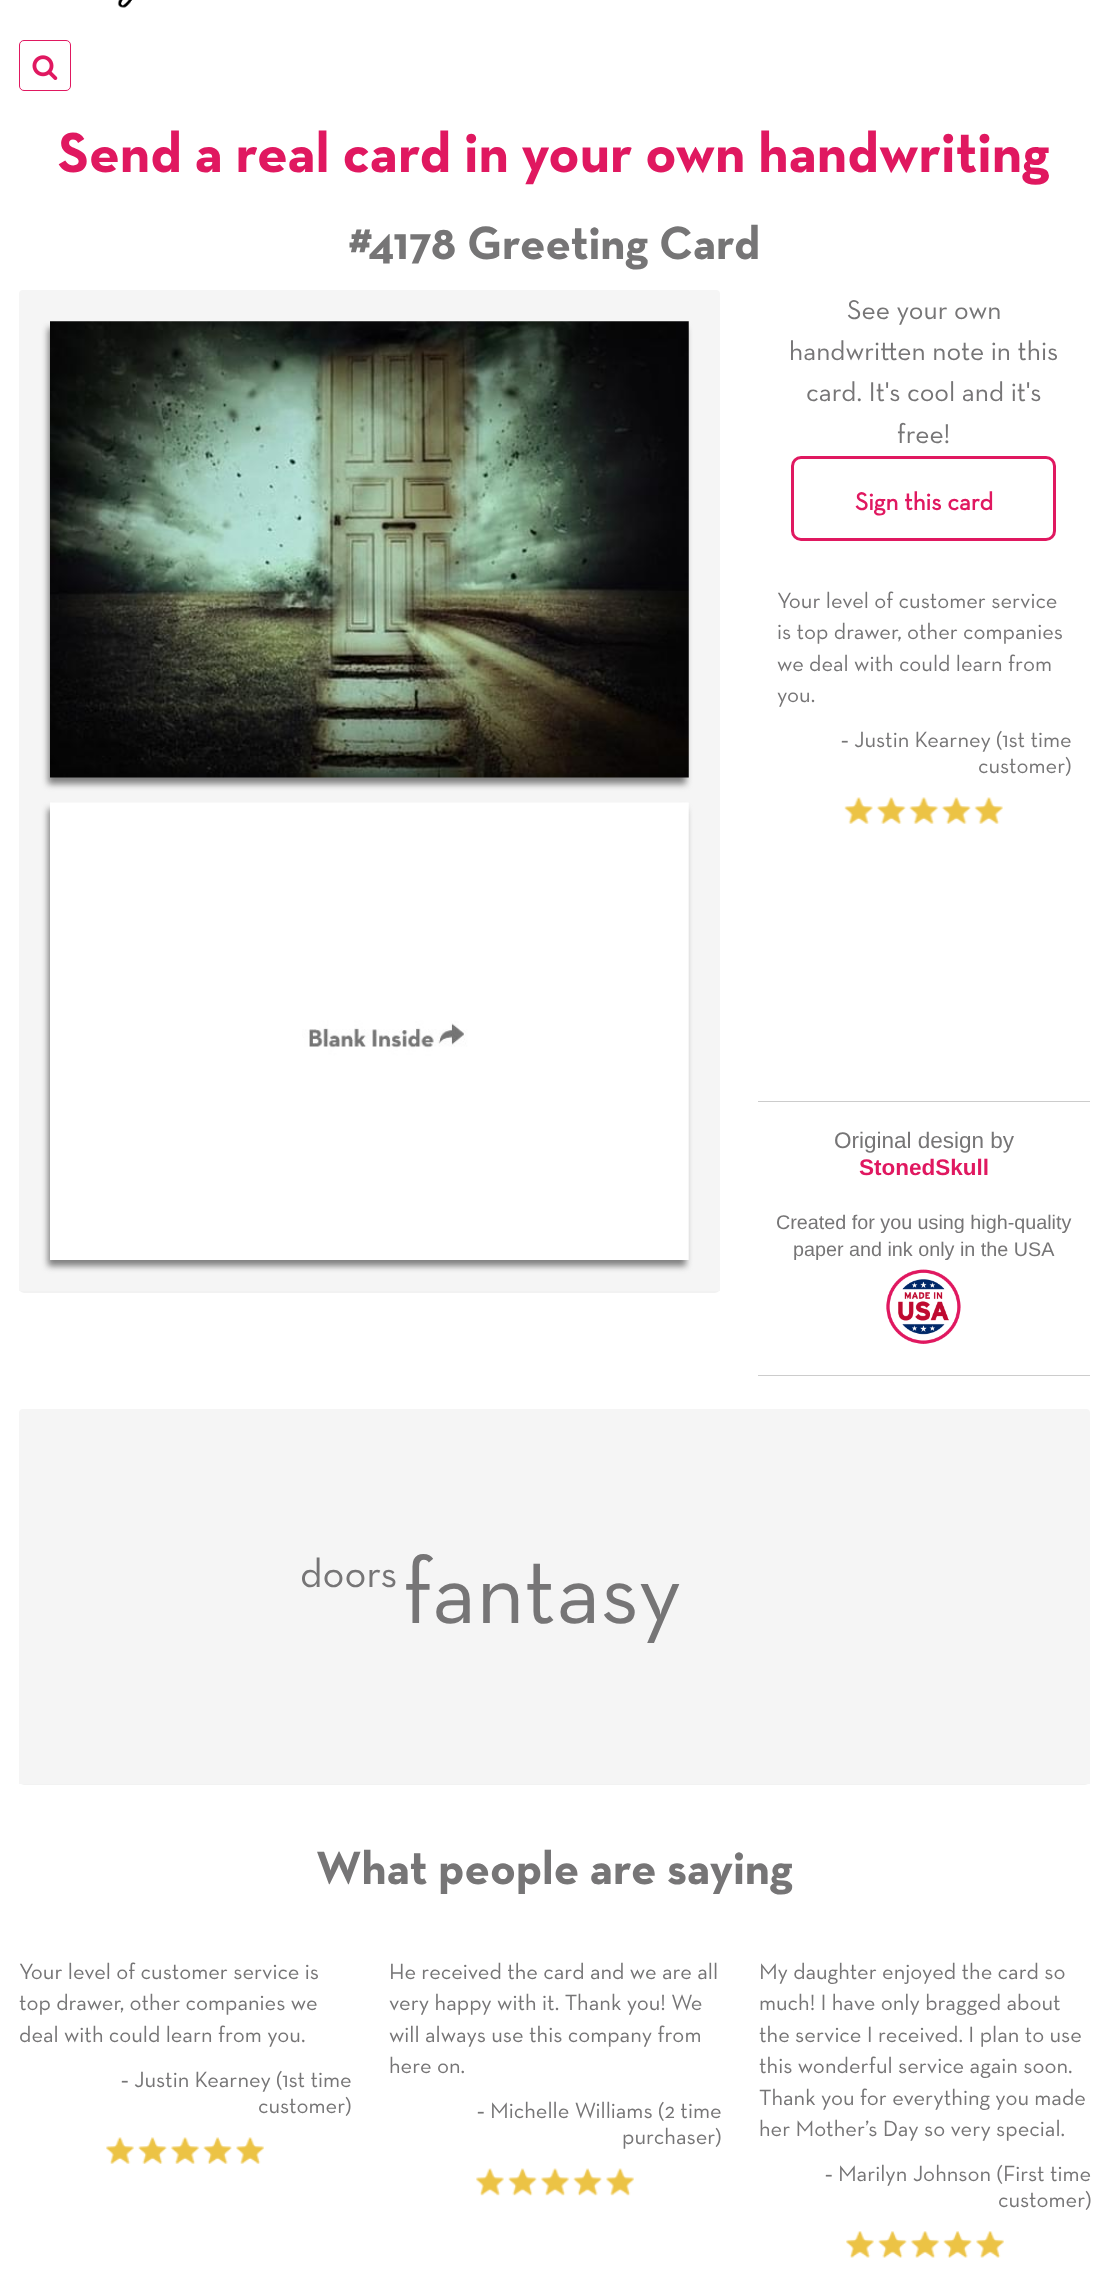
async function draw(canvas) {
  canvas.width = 1108;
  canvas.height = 2294;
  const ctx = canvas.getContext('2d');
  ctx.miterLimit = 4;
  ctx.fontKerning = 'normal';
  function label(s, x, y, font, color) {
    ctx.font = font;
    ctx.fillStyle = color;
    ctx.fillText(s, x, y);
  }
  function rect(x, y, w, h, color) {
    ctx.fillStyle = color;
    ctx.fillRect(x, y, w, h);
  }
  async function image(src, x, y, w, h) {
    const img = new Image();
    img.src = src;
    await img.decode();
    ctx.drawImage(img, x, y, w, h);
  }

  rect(0, 0, 1108, 2294, '#fff');
  await image('assets/img1.png', 117, 0, 15, 8);
  ctx.beginPath();
  ctx.roundRect(19.5, 40.5, 51, 50, 4.5);
  ctx.strokeStyle = '#e01860';
  ctx.stroke();
  await image('assets/img2.png', 32, 55, 26, 25);
  label('Send a real card in your own handwriting', 58, 172, 'bold 57.5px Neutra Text', '#e01860');
  label('#4178 Greeting Card', 348, 259, 'bold 47.5px Neutra Text', '#767576');
  ctx.fillStyle = '#0000000d';
  ctx.filter = 'blur(0.5px)';
  ctx.beginPath();
  ctx.roundRect(19, 291, 701, 1002, 5);
  ctx.fill();
  ctx.filter = 'none';
  ctx.fillStyle = '#f5f5f5';
  ctx.beginPath();
  ctx.roundRect(19, 290, 701, 1001, [4, 4, 0, 0]);
  ctx.fill();
  ctx.fillStyle = '#808080';
  ctx.filter = 'blur(3px)';
  ctx.beginPath();
  ctx.rect(48, 328, 638, 456);
  ctx.fill();
  ctx.filter = 'none';
  await image('assets/img3.png', 50, 321, 639, 457);
  ctx.filter = 'blur(3px)';
  ctx.beginPath();
  ctx.rect(48, 809, 638, 457);
  ctx.fill();
  ctx.filter = 'none';
  await image('assets/img4.png', 50, 802, 639, 458);
  label('See your own', 847, 319, '27.5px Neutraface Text', '#767576');
  label('handwritten note in this', 789, 360, '27.5px Neutraface Text', '#767576');
  label('card. It\'s cool and it\'s', 806, 401, '27.5px Neutraface Text', '#767576');
  label('free!', 897, 443, '27.5px Neutraface Text', '#767576');
  ctx.beginPath();
  ctx.roundRect(792.5, 457.5, 262, 82, 8.5);
  ctx.lineWidth = 3;
  ctx.stroke();
  label('Sign this card', 855, 510, 'bold 25px Neutraface Text', '#e01860');
  label('Your level of customer service', 777, 608, '22.5px Neutraface Text', '#767576');
  label('is top drawer, other companies', 777, 639, '22.5px Neutraface Text', '#767576');
  label('we deal with could learn from', 777, 671, '22.5px Neutraface Text', '#767576');
  label('you.', 777, 702, '22.5px Neutraface Text', '#767576');
  label('‐', 841, 747, '22.5px Liberation Serif', '#767576');
  label('Justin Kearney (1st time', 854, 747, '22.5px Neutraface Text', '#767576');
  label('customer)', 978, 773, '22.5px Neutraface Text', '#767576');
  await image('assets/img5.png', 844, 797, 159, 27);
  rect(758, 1101, 332, 1, '#ccc');
  rect(758, 1375, 332, 1, '#ccc');
  label('Original design by', 834, 1148, '22.5px Liberation Sans', '#767576');
  label('StonedSkull', 859, 1175, 'bold 22.5px Liberation Sans', '#e01860');
  label('Created for you using high-quality', 776, 1229, '19.75px Liberation Sans', '#767576');
  label('paper and ink only in the USA', 793, 1256, '19.75px Liberation Sans', '#767576');
  await image('assets/img6.png', 886, 1269, 75, 75);
  ctx.fillStyle = '#0000000d';
  ctx.filter = 'blur(0.5px)';
  ctx.beginPath();
  ctx.roundRect(19, 1410, 1071, 375, 5);
  ctx.fill();
  ctx.filter = 'none';
  ctx.fillStyle = '#f5f5f5';
  ctx.beginPath();
  ctx.roundRect(19, 1409, 1071, 375, [4, 4, 0, 0]);
  ctx.fill();
  label('doors', 300, 1587, '41px Neutraface Text', '#767576');
  label('fantasy', 403, 1623, '94px Neutraface Text', '#767576');
  label('What people are saying', 316, 1884, 'bold 47.5px Neutra Text', '#767576');
  label('Your level of customer service is', 19, 1979, '22.5px Neutraface Text', '#767576');
  label('top drawer, other companies we', 19, 2010, '22.5px Neutraface Text', '#767576');
  label('deal with could learn from you.', 19, 2042, '22.5px Neutraface Text', '#767576');
  label('‐', 121, 2087, '22.5px Liberation Serif', '#767576');
  label('Justin Kearney (1st time', 134, 2087, '22.5px Neutraface Text', '#767576');
  label('customer)', 258, 2113, '22.5px Neutraface Text', '#767576');
  await image('assets/img7.png', 106, 2137, 158, 27);
  label('He received the card and we are all', 389, 1979, '22.5px Neutraface Text', '#767576');
  label('very happy with it. Thank you! We', 389, 2010, '22.5px Neutraface Text', '#767576');
  label('will always use this company from', 389, 2042, '22.5px Neutraface Text', '#767576');
  label('here on.', 389, 2073, '22.5px Neutraface Text', '#767576');
  label('‐', 477, 2118, '22.5px Liberation Serif', '#767576');
  label('Michelle Williams (2 time', 490, 2118, '22.5px Neutraface Text', '#767576');
  label('purchaser)', 622, 2144, '22.5px Neutraface Text', '#767576');
  await image('assets/img8.png', 476, 2168, 158, 28);
  label('My daughter enjoyed the card so', 759, 1979, '22.5px Neutraface Text', '#767576');
  label('much! I have only bragged about', 759, 2010, '22.5px Neutraface Text', '#767576');
  label('the service I received. I plan to use', 759, 2042, '22.5px Neutraface Text', '#767576');
  label('this wonderful service again soon.', 759, 2073, '22.5px Neutraface Text', '#767576');
  label('Thank you for everything you made', 759, 2105, '22.5px Neutraface Text', '#767576');
  label('her Mother’s Day so very special.', 759, 2136, '22.5px Neutraface Text', '#767576');
  label('‐', 825, 2181, '22.5px Liberation Serif', '#767576');
  label('Marilyn Johnson (First time', 838, 2181, '22.5px Neutraface Text', '#767576');
  label('customer)', 998, 2207, '22.5px Neutraface Text', '#767576');
  await image('assets/img9.png', 846, 2231, 158, 27);
}

draw(document.querySelector('canvas'));
